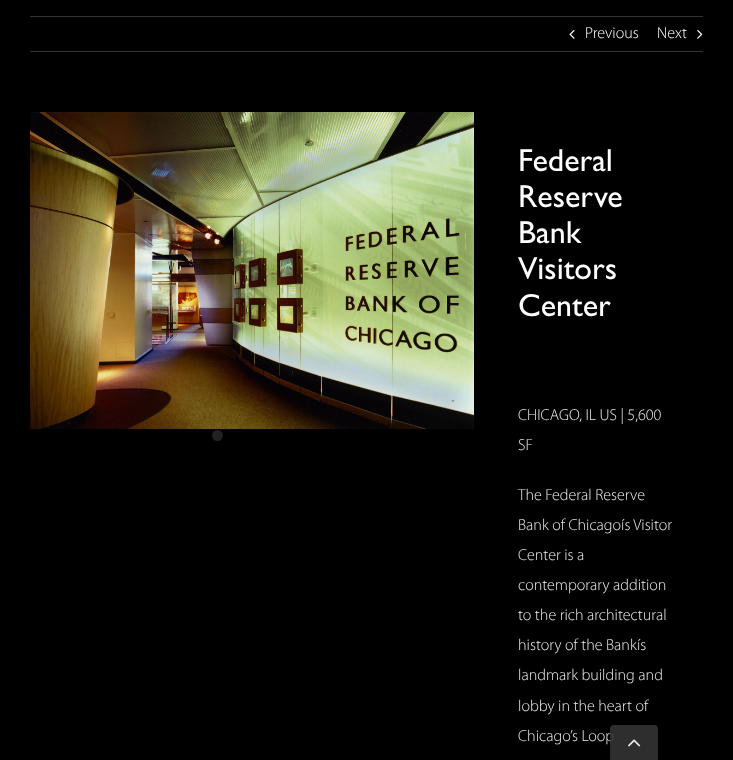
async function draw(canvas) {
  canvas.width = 733;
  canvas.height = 760;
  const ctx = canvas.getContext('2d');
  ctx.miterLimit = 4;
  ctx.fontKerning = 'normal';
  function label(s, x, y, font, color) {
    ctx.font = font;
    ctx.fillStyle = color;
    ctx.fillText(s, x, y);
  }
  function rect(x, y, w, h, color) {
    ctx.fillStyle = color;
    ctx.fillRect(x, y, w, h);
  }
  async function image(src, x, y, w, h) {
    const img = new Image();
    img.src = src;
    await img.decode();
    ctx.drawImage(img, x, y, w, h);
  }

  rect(0, 0, 733, 760, '#000');
  rect(30, 16, 673, 1, '#333');
  rect(30, 51, 673, 1, '#333');
  await image('assets/img1.png', 569, 30, 6, 9);
  label('Previous', 585, 38, '300 16px Myriad', '#fff');
  label('Next', 657, 38, '300 16px Myriad', '#fff');
  await image('assets/img2.png', 697, 30, 6, 9);
  await image('assets/img3.png', 30, 112, 444, 318);
  ctx.fillStyle = '#222';
  ctx.beginPath();
  ctx.arc(217.5, 435.5, 5.5, 0, 2 * Math.PI);
  ctx.fill();
  label('Federal', 518, 171, '32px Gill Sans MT', '#fff');
  label('Reserve', 518, 207, '32px Gill Sans MT', '#fff');
  label('Bank', 518, 243, '32px Gill Sans MT', '#fff');
  label('Visitors', 518, 279, '32px Gill Sans MT', '#fff');
  label('Center', 518, 316, '32px Gill Sans MT', '#fff');
  label('CHICAGO, IL US | 5,600', 518, 420, '300 16px Myriad', '#eaeaea');
  label('SF', 518, 450, '300 16px Myriad', '#eaeaea');
  label('The Federal Reserve', 518, 500, '300 16px Myriad', '#eaeaea');
  label('Bank of Chicagoís Visitor', 518, 530, '300 16px Myriad', '#eaeaea');
  label('Center is a', 518, 560, '300 16px Myriad', '#eaeaea');
  label('contemporary addition', 518, 590, '300 16px Myriad', '#eaeaea');
  label('to the rich architectural', 518, 620, '300 16px Myriad', '#eaeaea');
  label('history of the Bankís', 518, 650, '300 16px Myriad', '#eaeaea');
  label('landmark building and', 518, 680, '300 16px Myriad', '#eaeaea');
  label('lobby in the heart of', 518, 711, '300 16px Myriad', '#eaeaea');
  label('Chicago’s Loop', 518, 741, '300 16px Myriad', '#eaeaea');
  ctx.fillStyle = '#333333e6';
  ctx.beginPath();
  ctx.roundRect(610, 725, 48, 35, [4, 4, 0, 0]);
  ctx.fill();
  await image('assets/img4.png', 628, 739, 13, 8);
}

draw(document.querySelector('canvas'));
